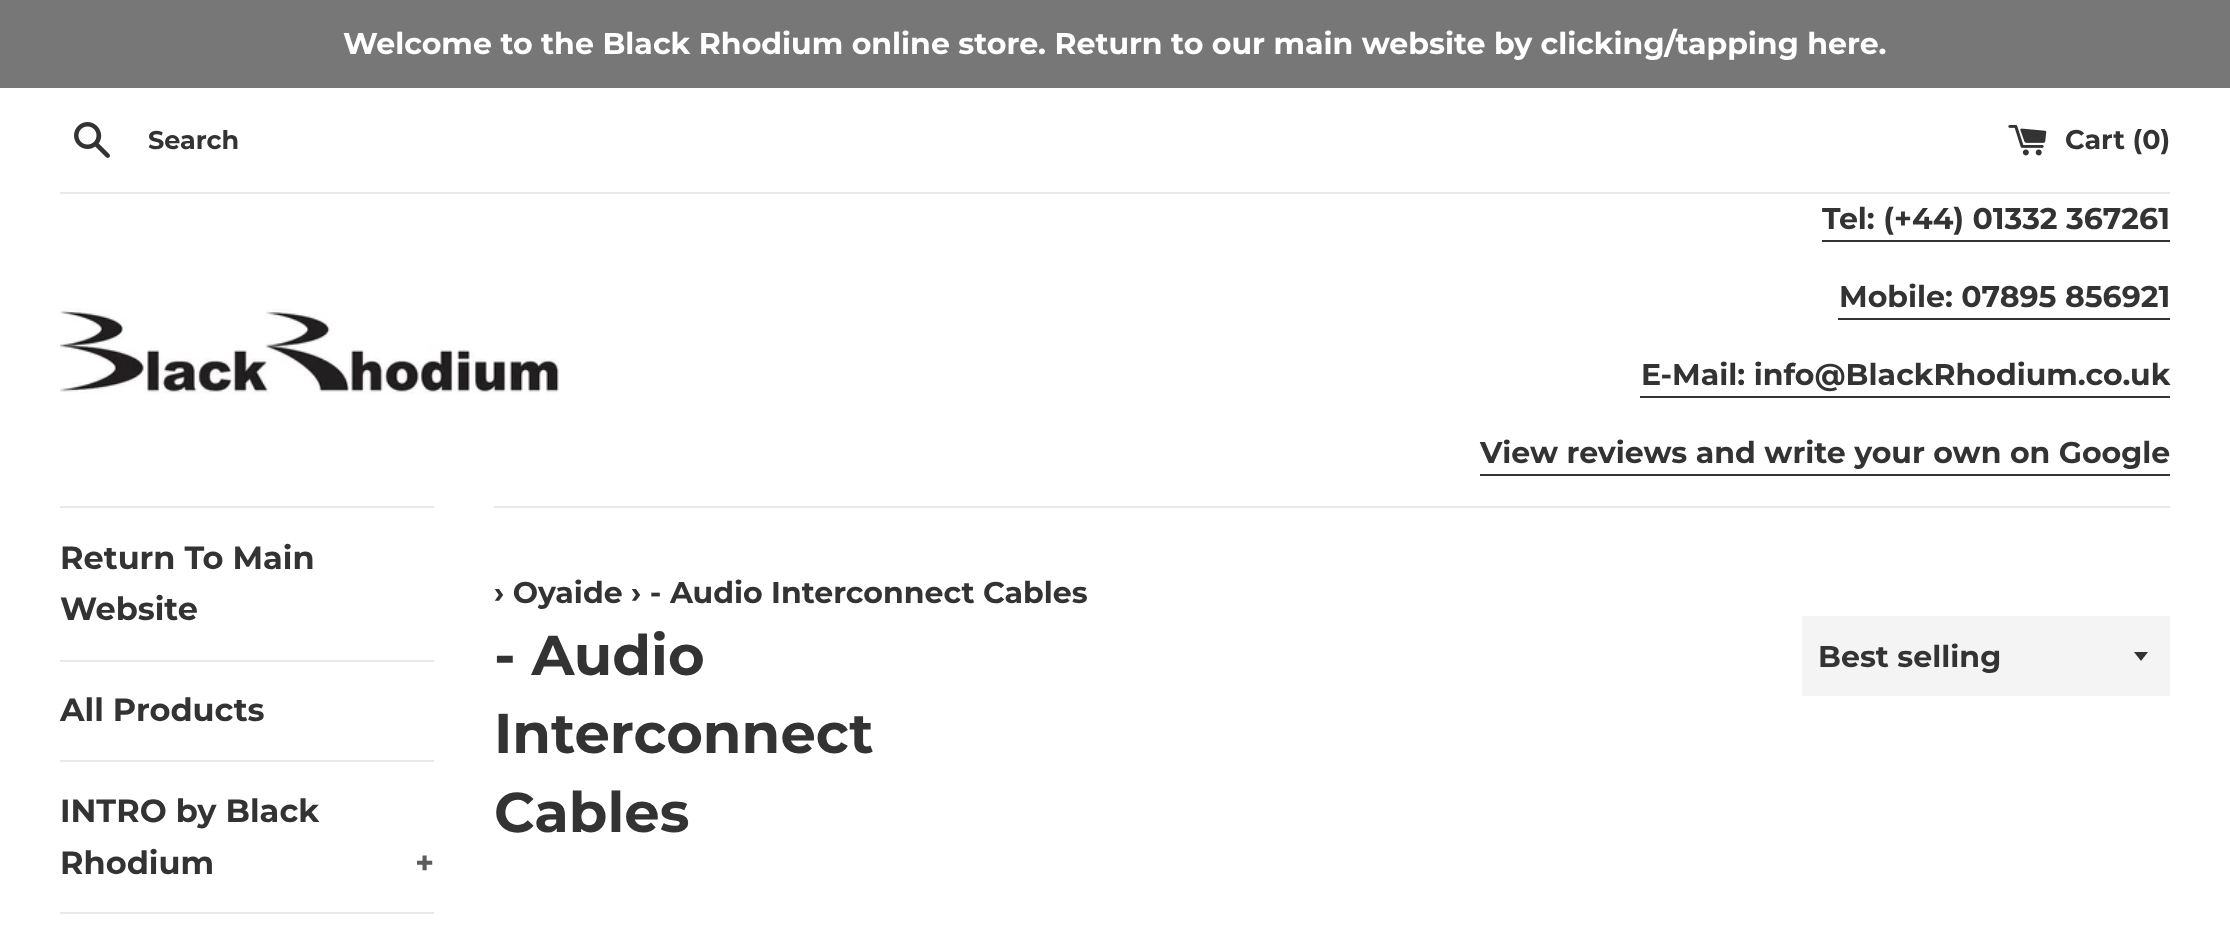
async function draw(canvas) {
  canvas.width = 2230;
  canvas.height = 929;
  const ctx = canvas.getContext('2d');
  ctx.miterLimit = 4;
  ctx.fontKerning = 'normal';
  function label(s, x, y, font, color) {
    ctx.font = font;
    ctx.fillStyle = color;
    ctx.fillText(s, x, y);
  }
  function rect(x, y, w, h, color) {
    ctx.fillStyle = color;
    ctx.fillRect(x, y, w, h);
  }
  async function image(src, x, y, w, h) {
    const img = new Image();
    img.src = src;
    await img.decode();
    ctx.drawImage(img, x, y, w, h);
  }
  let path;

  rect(0, 0, 2230, 929, '#fff');
  rect(0, 0, 2230, 88, '#777');
  label('Welcome to the Black Rhodium online store. Return to our main website by clicking/tapping here.', 343, 54, 'bold 30px Montserrat', '#fff');
  await image('assets/img1.png', 74, 122, 36, 36);
  label('Search', 148, 149, 'bold 25.5px Montserrat', '#333');
  await image('assets/img2.png', 2008, 125, 39, 31);
  label('Cart (0)', 2065, 149, 'bold 27px Montserrat', '#333');
  rect(60, 192, 2110, 2, '#e8e8e8');
  await image('assets/img3.png', 60, 308, 499, 86);
  label('Tel: (+44) 01332 367261', 1822, 229, 'bold 30px Montserrat', '#333');
  rect(1822, 240, 348, 2, '#333');
  label('Mobile: 07895 856921', 1839, 307, 'bold 30px Montserrat', '#333');
  rect(1838, 318, 332, 2, '#333');
  label('E-Mail: info@BlackRhodium.co.uk', 1641, 385, 'bold 30px Montserrat', '#333');
  rect(1640, 396, 530, 2, '#333');
  label('View reviews and write your own on Google', 1480, 463, 'bold 30px Montserrat', '#333');
  rect(1480, 474, 690, 2, '#333');
  rect(60, 506, 374, 2, '#e8e8e8');
  rect(60, 660, 374, 2, '#e8e8e8');
  label('Return To Main', 60, 569, 'bold 32px Montserrat', '#333');
  label('Website', 60, 620, 'bold 32px Montserrat', '#333');
  rect(60, 760, 374, 2, '#e8e8e8');
  label('All Products', 60, 721, 'bold 32px Montserrat', '#333');
  rect(60, 912, 374, 2, '#e8e8e8');
  label('INTRO by Black', 60, 822, 'bold 32px Montserrat', '#333');
  label('Rhodium', 60, 874, 'bold 32px Montserrat', '#333');
  label('+', 415, 874, 'bold 32px Montserrat', '#5c5c5c');
  rect(494, 506, 1676, 2, '#e8e8e8');
  label('› Oyaide › - Audio Interconnect Cables', 494, 603, 'bold 30px Montserrat', '#333');
  label('- Audio', 494, 675, 'bold 56px Montserrat', '#333');
  label('Interconnect', 494, 753, 'bold 56px Montserrat', '#333');
  label('Cables', 494, 832, 'bold 56px Montserrat', '#333');
  rect(1802, 616, 368, 80, '#f4f4f4');
  ctx.fillStyle = '#333';
  path = new Path2D('M2134 652L2141 661L2148 652Z');
  ctx.fill(path);
  label('Best selling', 1818, 667, 'bold 30px Montserrat', '#333');
}

draw(document.querySelector('canvas'));
